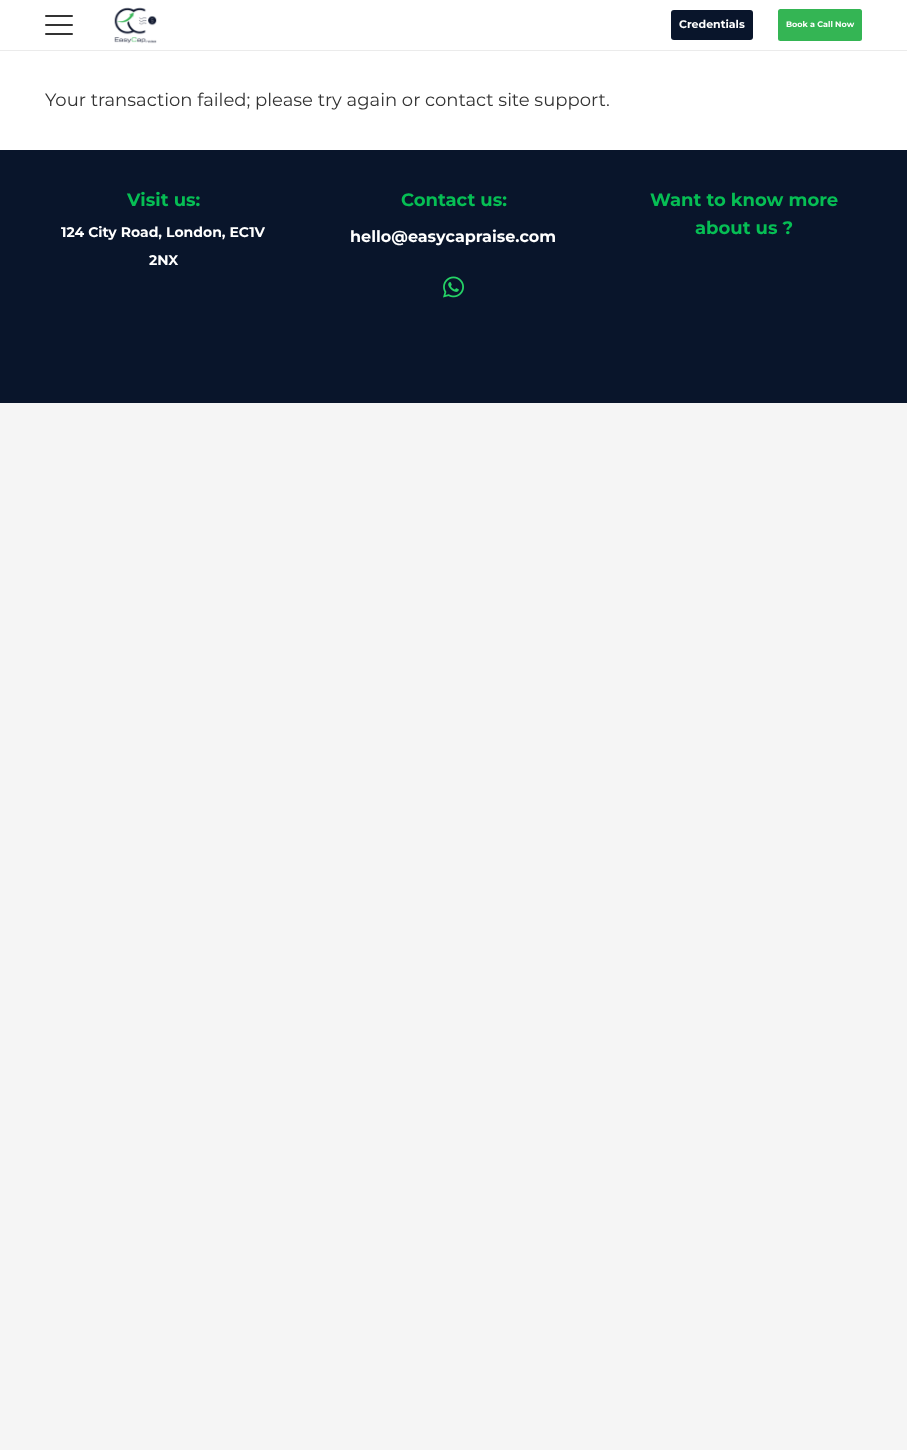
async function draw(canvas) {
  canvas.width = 907;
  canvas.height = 1450;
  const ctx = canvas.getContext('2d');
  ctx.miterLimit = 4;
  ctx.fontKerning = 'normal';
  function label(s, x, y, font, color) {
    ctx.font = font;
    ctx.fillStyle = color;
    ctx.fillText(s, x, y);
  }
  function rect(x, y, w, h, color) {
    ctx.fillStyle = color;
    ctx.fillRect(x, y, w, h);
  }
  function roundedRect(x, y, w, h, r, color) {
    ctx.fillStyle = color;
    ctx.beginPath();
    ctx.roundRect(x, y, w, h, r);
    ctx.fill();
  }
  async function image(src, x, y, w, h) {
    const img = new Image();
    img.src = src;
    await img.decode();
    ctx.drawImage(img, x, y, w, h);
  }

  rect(0, 0, 907, 1450, '#f5f5f5');
  rect(0, 0, 907, 150, '#fff');
  rect(0, 50, 907, 1, '#ebebeb');
  roundedRect(45, 24, 28, 2, 1, '#333');
  roundedRect(45, 15, 28, 2, 1, '#333');
  roundedRect(45, 33, 28, 2, 1, '#333');
  await image('assets/img1.png', 114, 7, 43, 37);
  roundedRect(671, 10, 82, 30, 3, '#09152b');
  label('Credentials', 679, 28, '100 11px "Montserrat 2"', '#fff');
  roundedRect(778, 9, 84, 32, 2.5, '#34b554');
  label('Book a Call Now', 786, 27, '100 8px "Montserrat 2"', '#fff');
  label('Your transaction failed; please try again or contact site support.', 45, 106, '100 18px Montserrat', '#333');
  rect(0, 150, 907, 253, '#09152b');
  label('Visit us:', 127, 206, '100 18px "Montserrat 2"', '#06be54');
  label('124 City Road, London, EC1V', 61, 237, '100 14px "Montserrat 2"', '#fff');
  label('2NX', 149, 265, '100 14px "Montserrat 2"', '#fff');
  label('Contact us:', 401, 206, '100 18px "Montserrat 2"', '#06be54');
  label('hello@easycapraise.com', 350, 242, '100 16px "Montserrat 2"', '#fff');
  await image('assets/img2.png', 443, 276, 21, 22);
  label('Want to know more', 650, 206, '100 18px "Montserrat 2"', '#06be54');
  label('about us ?', 695, 234, '100 18px "Montserrat 2"', '#06be54');
}

draw(document.querySelector('canvas'));
